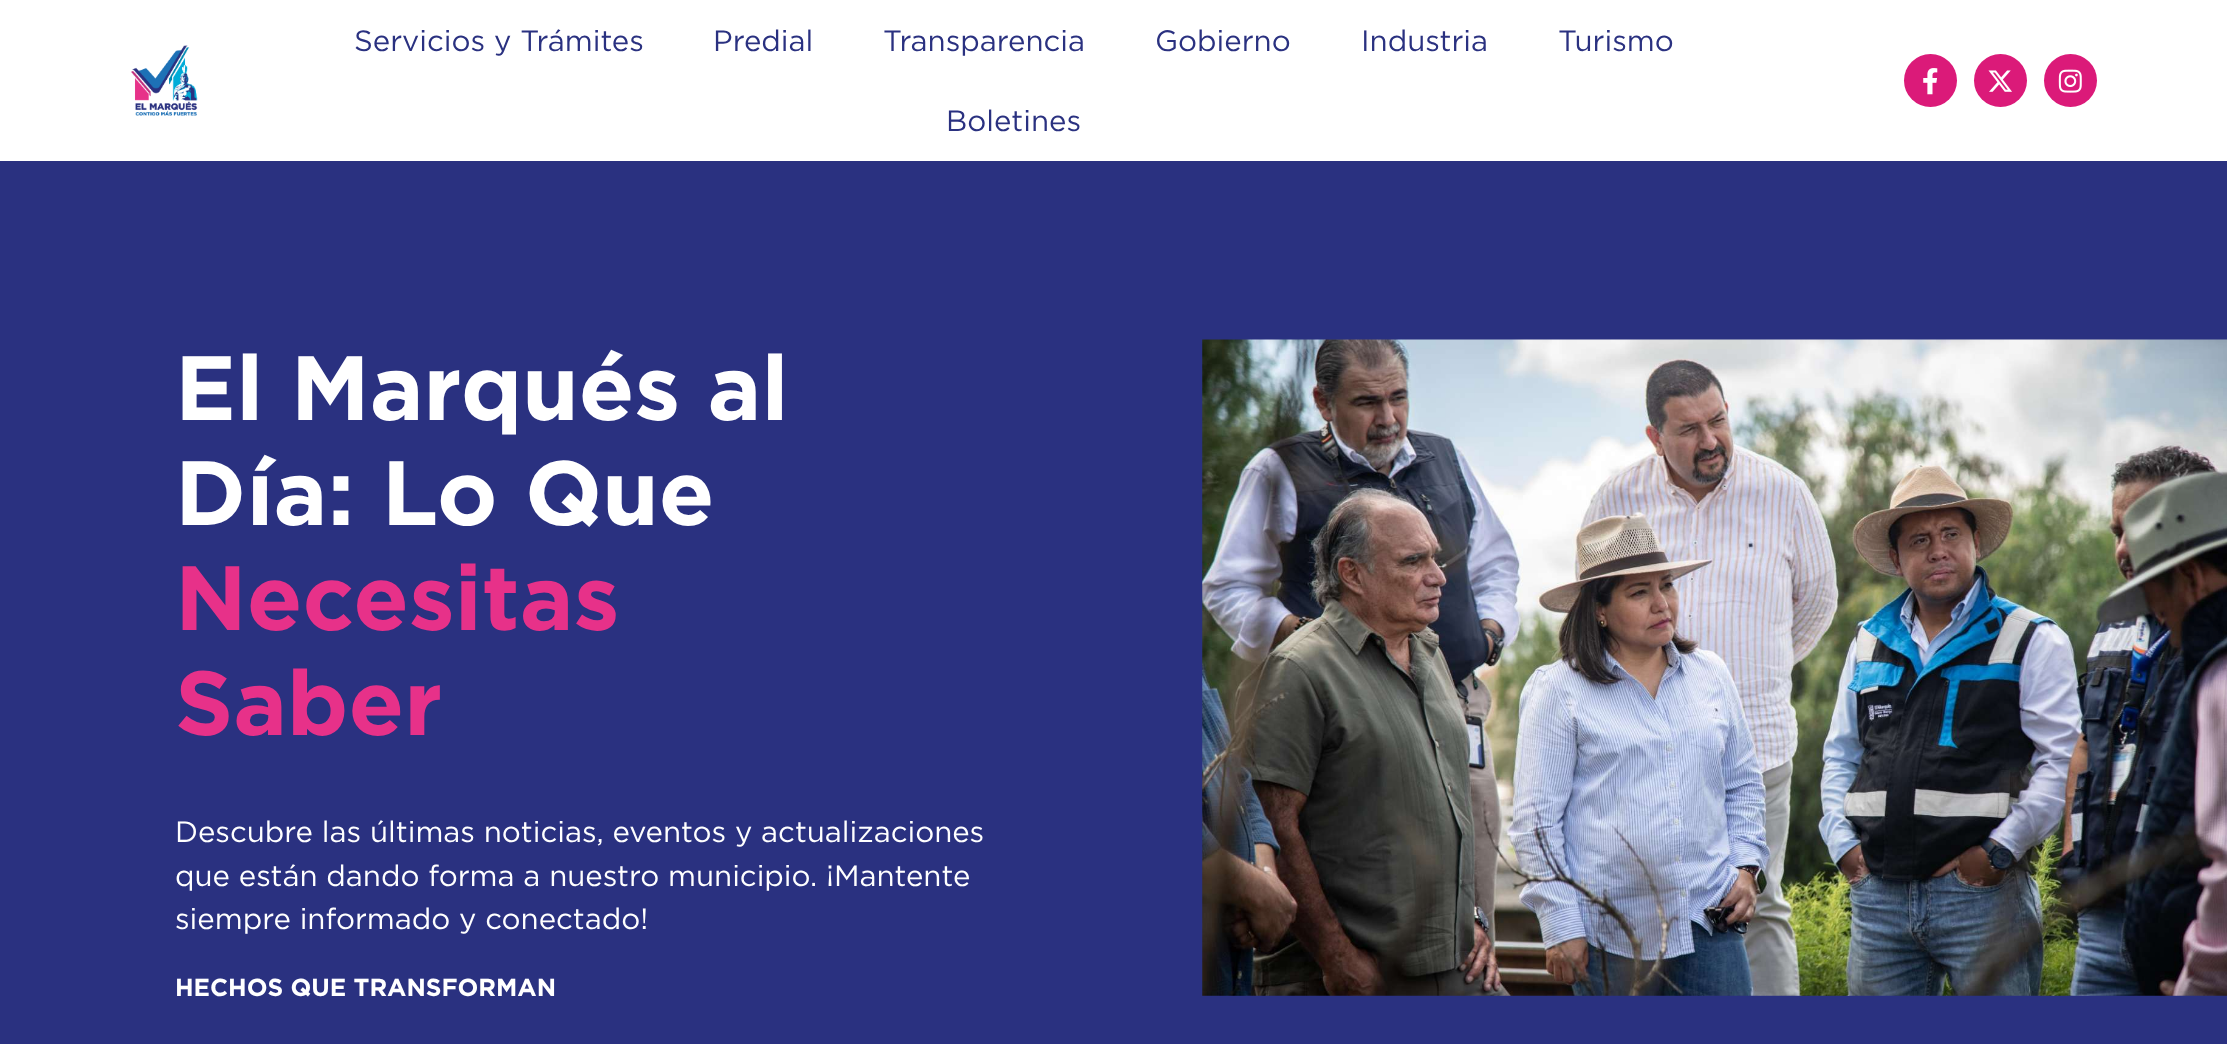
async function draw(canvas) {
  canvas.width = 2227;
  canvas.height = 1044;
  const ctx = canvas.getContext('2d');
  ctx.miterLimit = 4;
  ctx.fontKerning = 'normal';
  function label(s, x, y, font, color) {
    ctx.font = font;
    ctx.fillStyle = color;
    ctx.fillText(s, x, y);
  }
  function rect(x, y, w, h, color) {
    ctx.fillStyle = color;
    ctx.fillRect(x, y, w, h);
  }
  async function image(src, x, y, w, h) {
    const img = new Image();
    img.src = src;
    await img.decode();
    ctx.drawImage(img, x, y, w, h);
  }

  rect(0, 0, 2227, 1044, '#fff');
  await image('assets/img1.png', 131, 45, 67, 71);
  label('Servicios y Trámites', 354, 51, '29.4px Gotham', '#2a3180');
  label('Predial', 713, 51, '29.4px Gotham', '#2a3180');
  label('Transparencia', 883, 51, '29.4px Gotham', '#2a3180');
  label('Gobierno', 1155, 51, '29.4px Gotham', '#2a3180');
  label('Industria', 1361, 51, '29.4px Gotham', '#2a3180');
  label('Turismo', 1558, 51, '29.4px Gotham', '#2a3180');
  label('Boletines', 946, 131, '29.4px Gotham', '#2a3180');
  ctx.fillStyle = '#db1a79';
  ctx.beginPath();
  ctx.arc(1930.5, 80.5, 26.5, 0, 2 * Math.PI);
  ctx.fill();
  await image('assets/img2.png', 1923, 68, 15, 27);
  ctx.beginPath();
  ctx.arc(2000.5, 80.5, 26.5, 0, 2 * Math.PI);
  ctx.fill();
  await image('assets/img3.png', 1988, 70, 24, 22);
  ctx.beginPath();
  ctx.arc(2070.5, 80.5, 26.5, 0, 2 * Math.PI);
  ctx.fill();
  await image('assets/img4.png', 2058, 69, 24, 24);
  rect(0, 161, 2227, 883, '#2a3180');
  label('El Marqués al', 175, 420, 'bold 91px Gotham', '#fff');
  label('Día: Lo Que', 175, 525, 'bold 91px Gotham', '#fff');
  label('Necesitas', 175, 630, 'bold 91px Gotham', '#e73189');
  label('Saber', 175, 735, 'bold 91px Gotham', '#e73189');
  label('Descubre las últimas noticias, eventos y actualizaciones', 175, 842, '29.4px Gotham', '#fff');
  label('que están dando forma a nuestro municipio. ¡Mantente', 175, 886, '29.4px Gotham', '#fff');
  label('siempre informado y conectado!', 175, 929, '29.4px Gotham', '#fff');
  label('HECHOS QUE TRANSFORMAN', 175, 996, 'bold 24.5px Gotham', '#fff');
  await image('assets/img5.png', 1202, 339, 1025, 657);
}

draw(document.querySelector('canvas'));
